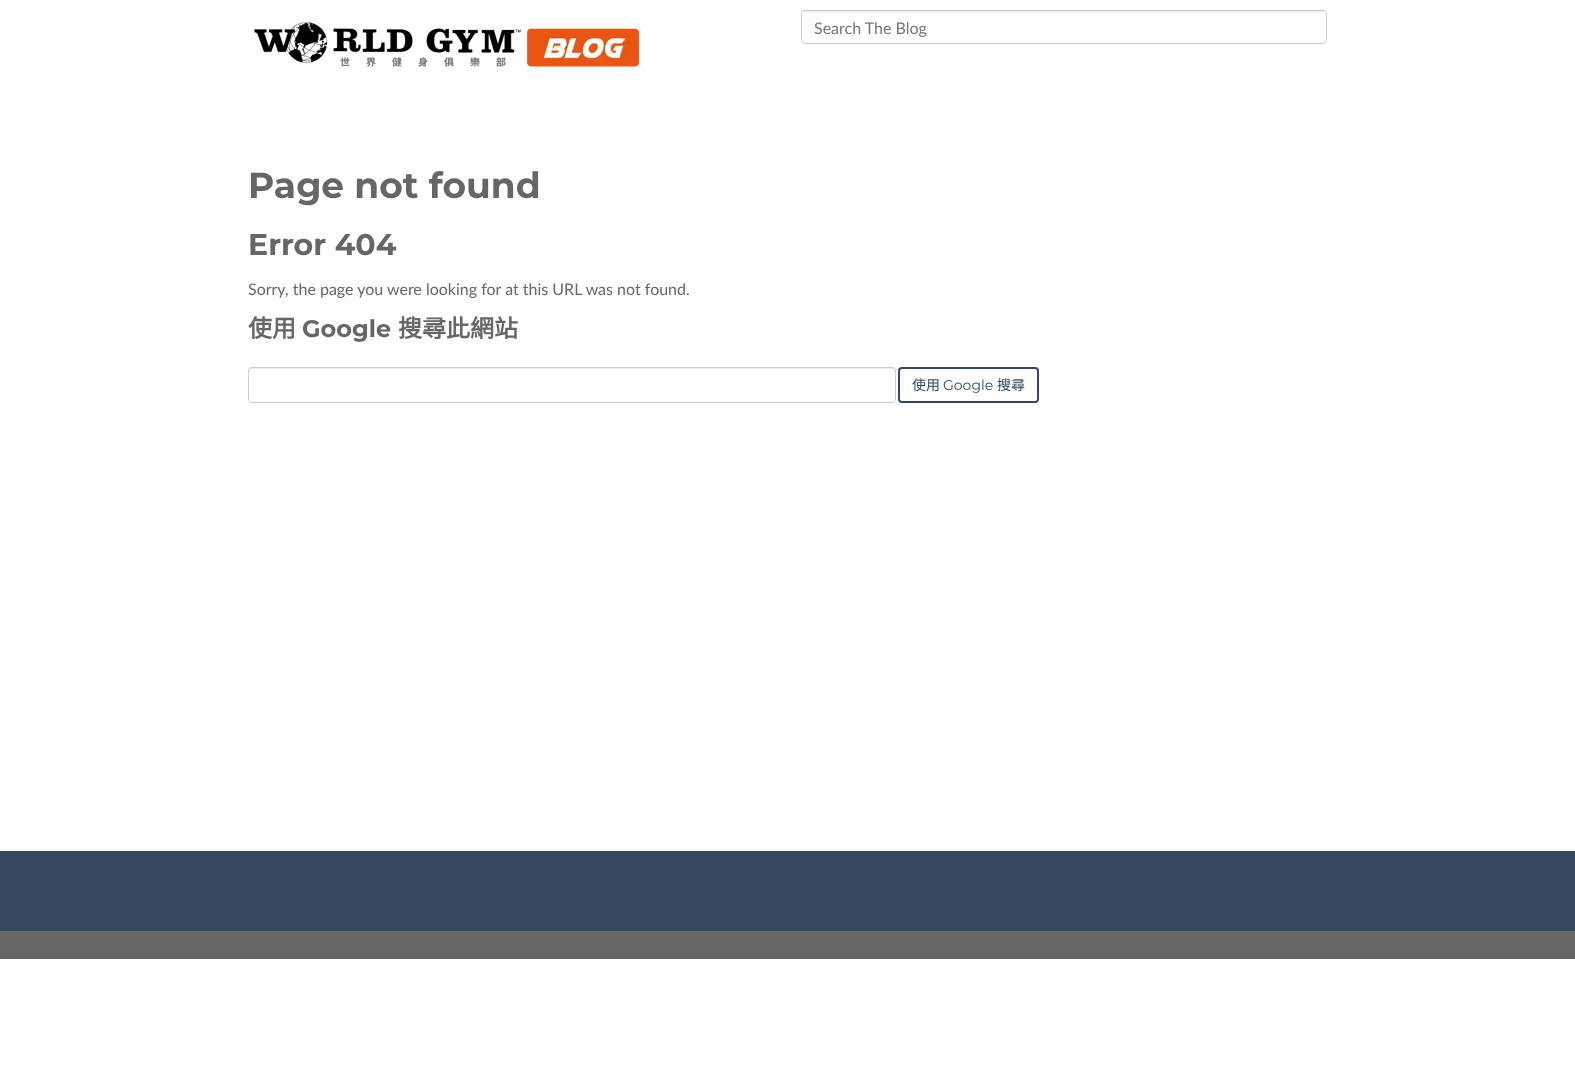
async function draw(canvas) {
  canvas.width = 1575;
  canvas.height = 1085;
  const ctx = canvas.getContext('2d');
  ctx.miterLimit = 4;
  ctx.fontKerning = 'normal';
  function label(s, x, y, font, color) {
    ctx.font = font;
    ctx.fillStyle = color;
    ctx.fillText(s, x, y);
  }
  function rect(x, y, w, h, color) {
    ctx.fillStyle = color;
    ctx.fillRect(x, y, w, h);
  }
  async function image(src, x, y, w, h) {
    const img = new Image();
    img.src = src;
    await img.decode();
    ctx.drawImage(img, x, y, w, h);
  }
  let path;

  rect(0, 0, 1575, 1085, '#fff');
  await image('assets/img1.png', 254, 22, 386, 45);
  ctx.fillStyle = '#ececec';
  path = new Path2D('M805 12H1323C1325 12 1326 13 1326 15V13L1324 11H805C803 11 802 13 802 15C802 13 803 12 805 12Z');
  ctx.fill(path);
  ctx.beginPath();
  ctx.roundRect(801.5, 10.5, 525, 33, 3.5);
  ctx.strokeStyle = '#ccc';
  ctx.stroke();
  label('Search The Blog', 814, 34, '16px Lato', '#757575');
  label('Page not found', 248, 198, 'bold 36px Montserrat', '#666');
  label('Error 404', 248, 255, 'bold 30px Montserrat', '#666');
  label('Sorry, the page you were looking for at this URL was not found.', 248, 295, '16px Lato', '#666');
  label('使用', 248, 337, 'bold 24px Noto Sans CJK TC', '#666');
  label('Google', 302, 337, 'bold 24px Montserrat', '#666');
  label('搜尋此網站', 398, 337, 'bold 24px Noto Sans CJK TC', '#666');
  ctx.fillStyle = '#ececec';
  path = new Path2D('M252 369H892C894 369 895 370 895 372V371C895 369 894 368 892 368H252C250 368 249 369 249 371V372C249 370 250 369 252 369Z');
  ctx.fill(path);
  ctx.beginPath();
  ctx.roundRect(248.5, 367.5, 647, 35, 3.5);
  ctx.stroke();
  ctx.beginPath();
  ctx.roundRect(899, 368, 139, 34, 3);
  ctx.strokeStyle = '#34495e';
  ctx.lineWidth = 2;
  ctx.stroke();
  label('使用', 912, 390, '14px Noto Sans CJK TC', '#34495e');
  label('Google', 943, 390, '14px Montserrat', '#34495e');
  label('搜尋', 997, 390, '14px Noto Sans CJK TC', '#34495e');
  rect(0, 851, 1575, 80, '#34495e');
  rect(0, 931, 1575, 28, '#666');
}

draw(document.querySelector('canvas'));
